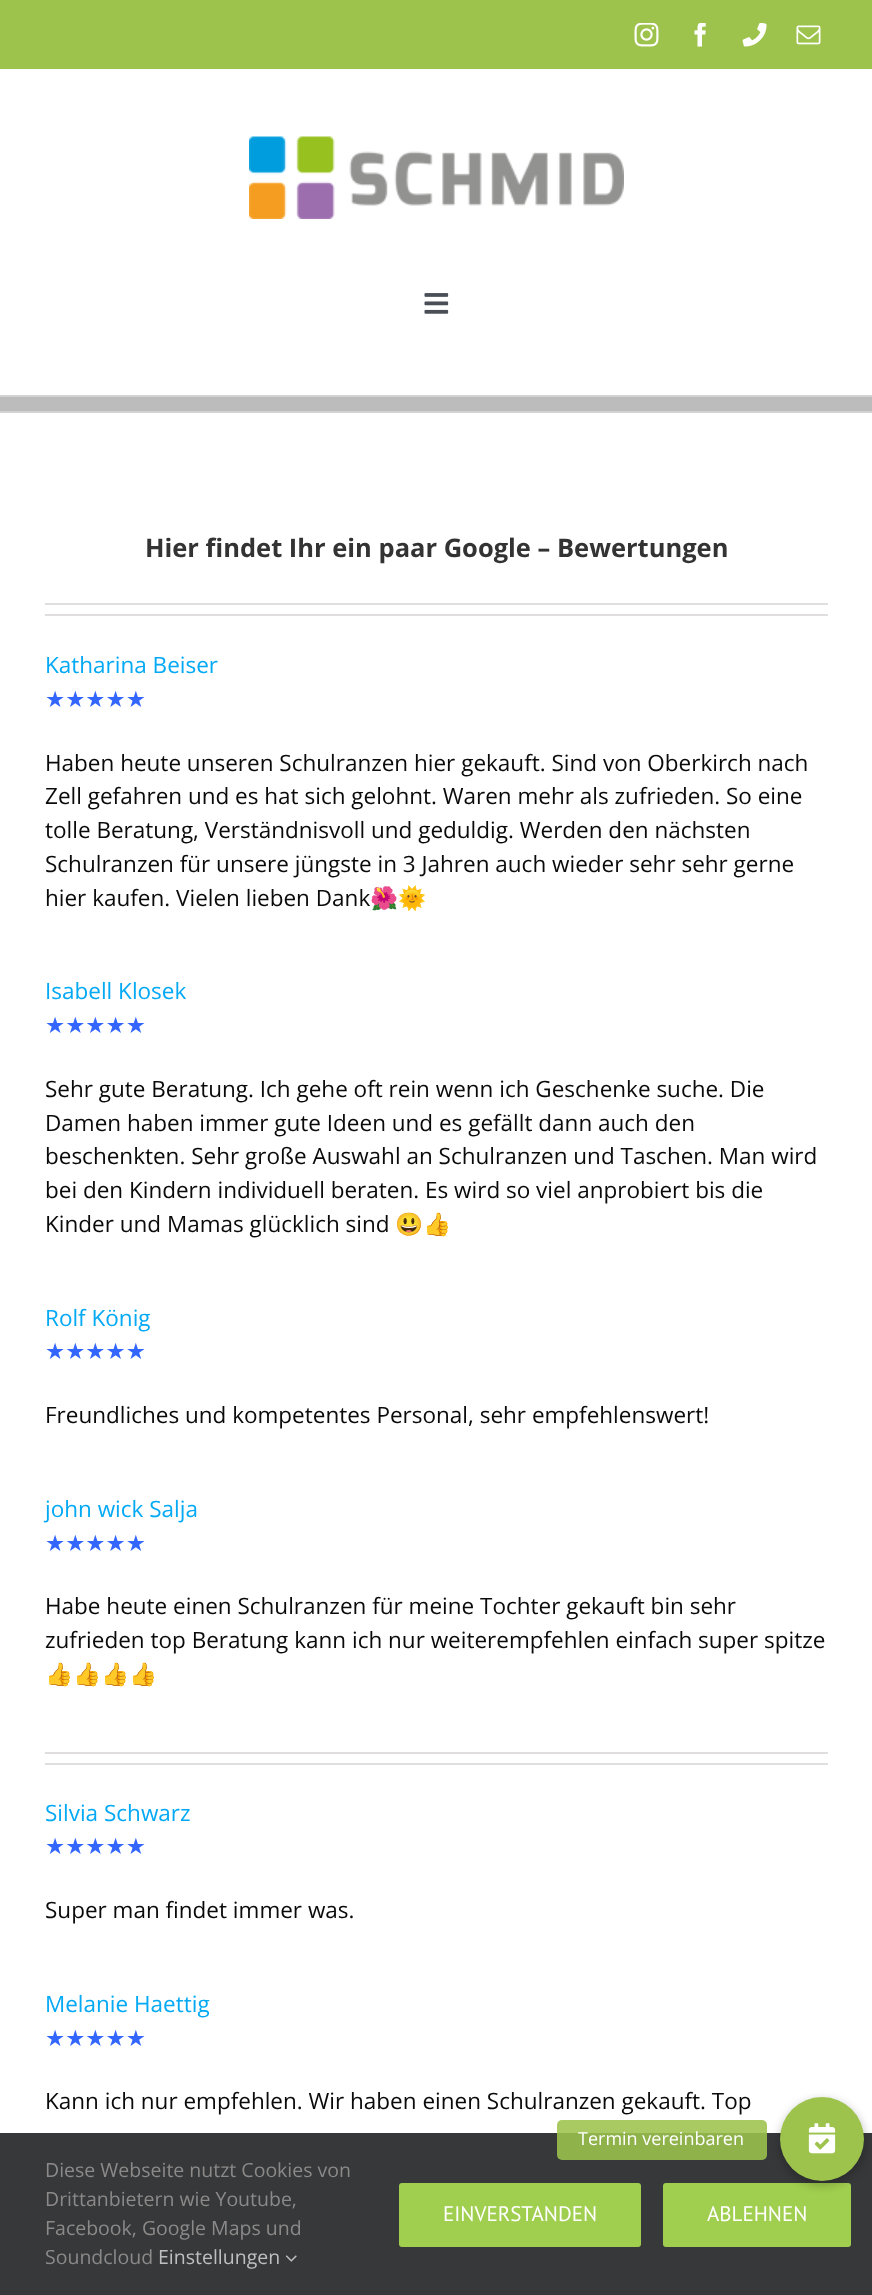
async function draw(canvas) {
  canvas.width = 872;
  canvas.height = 2295;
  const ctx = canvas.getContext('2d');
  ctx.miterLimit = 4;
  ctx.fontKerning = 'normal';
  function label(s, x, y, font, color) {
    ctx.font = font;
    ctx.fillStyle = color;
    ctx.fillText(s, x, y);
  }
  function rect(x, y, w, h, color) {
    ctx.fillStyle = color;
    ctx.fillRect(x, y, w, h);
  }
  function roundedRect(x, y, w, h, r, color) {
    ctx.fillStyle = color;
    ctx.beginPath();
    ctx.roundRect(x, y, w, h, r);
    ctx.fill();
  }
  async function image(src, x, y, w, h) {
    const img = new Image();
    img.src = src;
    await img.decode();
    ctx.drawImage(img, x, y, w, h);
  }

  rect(0, 0, 872, 2295, '#fff');
  rect(0, 0, 872, 69, '#9dc34d');
  await image('assets/img1.png', 634, 23, 25, 24);
  await image('assets/img2.png', 694, 23, 12, 24);
  await image('assets/img3.png', 742, 23, 25, 24);
  await image('assets/img4.png', 796, 25, 25, 20);
  await image('assets/img5.png', 249, 136, 375, 83);
  await image('assets/img6.png', 424, 293, 25, 21);
  rect(0, 397, 872, 14, '#bcbcbc');
  rect(0, 395, 872, 2, '#d2d3d4');
  rect(0, 411, 872, 2, '#d2d3d4');
  label('Hier findet Ihr ein paar Google – Bewertungen', 145, 557, 'bold 25.5px Open Sans', '#333');
  rect(45, 603, 783, 2, '#e0dede');
  rect(45, 614, 783, 2, '#e0dede');
  label('Katharina Beiser', 45, 673, '22.5px Open Sans', '#03a9f4');
  label('★★★★★', 45, 707, '22.5px DejaVu Sans', '#36f');
  label('Haben heute unseren Schulranzen hier gekauft. Sind von Oberkirch nach', 45, 771, '22.5px Open Sans', '#0a0a0a');
  label('Zell gefahren und es hat sich gelohnt. Waren mehr als zufrieden. So eine', 45, 804, '22.5px Open Sans', '#0a0a0a');
  label('tolle Beratung, Verständnisvoll und geduldig. Werden den nächsten', 45, 838, '22.5px Open Sans', '#0a0a0a');
  label('Schulranzen für unsere jüngste in 3 Jahren auch wieder sehr sehr gerne', 45, 872, '22.5px Open Sans', '#0a0a0a');
  label('hier kaufen. Vielen lieben Dank', 45, 906, '22.5px Open Sans', '#0a0a0a');
  label('🌺🌞', 370, 906, '22.5px Noto Color Emoji', '#0a0a0a');
  label('Isabell Klosek', 45, 999, '22.5px Open Sans', '#03a9f4');
  label('★★★★★', 45, 1033, '22.5px DejaVu Sans', '#36f');
  label('Sehr gute Beratung. Ich gehe oft rein wenn ich Geschenke suche. Die', 45, 1097, '22.5px Open Sans', '#0a0a0a');
  label('Damen haben immer gute Ideen und es gefällt dann auch den', 45, 1131, '22.5px Open Sans', '#0a0a0a');
  label('beschenkten. Sehr große Auswahl an Schulranzen und Taschen. Man wird', 45, 1164, '22.5px Open Sans', '#0a0a0a');
  label('bei den Kindern individuell beraten. Es wird so viel anprobiert bis die', 45, 1198, '22.5px Open Sans', '#0a0a0a');
  label('Kinder und Mamas glücklich sind', 45, 1232, '22.5px Open Sans', '#0a0a0a');
  label('😃👍', 395, 1232, '22.5px Noto Color Emoji', '#0a0a0a');
  label('Rolf König', 45, 1326, '22.5px Open Sans', '#03a9f4');
  label('★★★★★', 45, 1359, '22.5px DejaVu Sans', '#36f');
  label('Freundliches und kompetentes Personal, sehr empfehlenswert!', 45, 1423, '22.5px Open Sans', '#0a0a0a');
  label('john wick Salja', 45, 1517, '22.5px Open Sans', '#03a9f4');
  label('★★★★★', 45, 1551, '22.5px DejaVu Sans', '#36f');
  label('Habe heute einen Schulranzen für meine Tochter gekauft bin sehr', 45, 1614, '22.5px Open Sans', '#0a0a0a');
  label('zufrieden top Beratung kann ich nur weiterempfehlen einfach super spitze', 45, 1648, '22.5px Open Sans', '#0a0a0a');
  label('👍👍👍👍', 45, 1682, '22.5px Noto Color Emoji', '#0a0a0a');
  rect(45, 1752, 783, 2, '#e0dede');
  rect(45, 1763, 783, 2, '#e0dede');
  label('Silvia Schwarz', 45, 1821, '22.5px Open Sans', '#03a9f4');
  label('★★★★★', 45, 1854, '22.5px DejaVu Sans', '#36f');
  label('Super man findet immer was.', 45, 1918, '22.5px Open Sans', '#0a0a0a');
  label('Melanie Haettig', 45, 2012, '22.5px Open Sans', '#03a9f4');
  label('★★★★★', 45, 2046, '22.5px DejaVu Sans', '#36f');
  label('Kann ich nur empfehlen. Wir haben einen Schulranzen gekauft. Top', 45, 2109, '22.5px Open Sans', '#0a0a0a');
  rect(0, 2133, 872, 162, '#363839');
  roundedRect(663, 2183, 188, 64, 3, '#a0ce4e');
  ctx.fillStyle = '#00000033';
  ctx.filter = 'blur(4.5px)';
  ctx.beginPath();
  ctx.roundRect(779, 2099, 87, 87, 43.5);
  ctx.fill();
  ctx.filter = 'none';
  ctx.fillStyle = '#9dc34d';
  ctx.beginPath();
  ctx.arc(822, 2139, 42, 0, 2 * Math.PI);
  ctx.fill();
  roundedRect(557, 2120, 210, 40, 5, '#9dc34de0');
  label('Termin vereinbaren', 578, 2145, '18px Open Sans', '#fff');
  await image('assets/img7.png', 808, 2123, 28, 31);
  label('Diese Webseite nutzt Cookies von', 45, 2177, '19.5px Open Sans', '#8c8989');
  label('Drittanbietern wie Youtube,', 45, 2206, '19.5px Open Sans', '#8c8989');
  label('Facebook, Google Maps und', 45, 2235, '19.5px Open Sans', '#8c8989');
  label('Soundcloud', 45, 2264, '19.5px Open Sans', '#8c8989');
  label('Einstellungen', 158, 2264, '19.5px Open Sans', '#bfbfbf');
  await image('assets/img8.png', 285, 2255, 12, 7);
  roundedRect(399, 2183, 242, 64, 3, '#a0ce4e');
  label('EINVERSTANDEN', 443, 2221, '21px PT Sans', '#fff');
  label('ABLEHNEN', 707, 2221, '21px PT Sans', '#fff');
}

draw(document.querySelector('canvas'));
